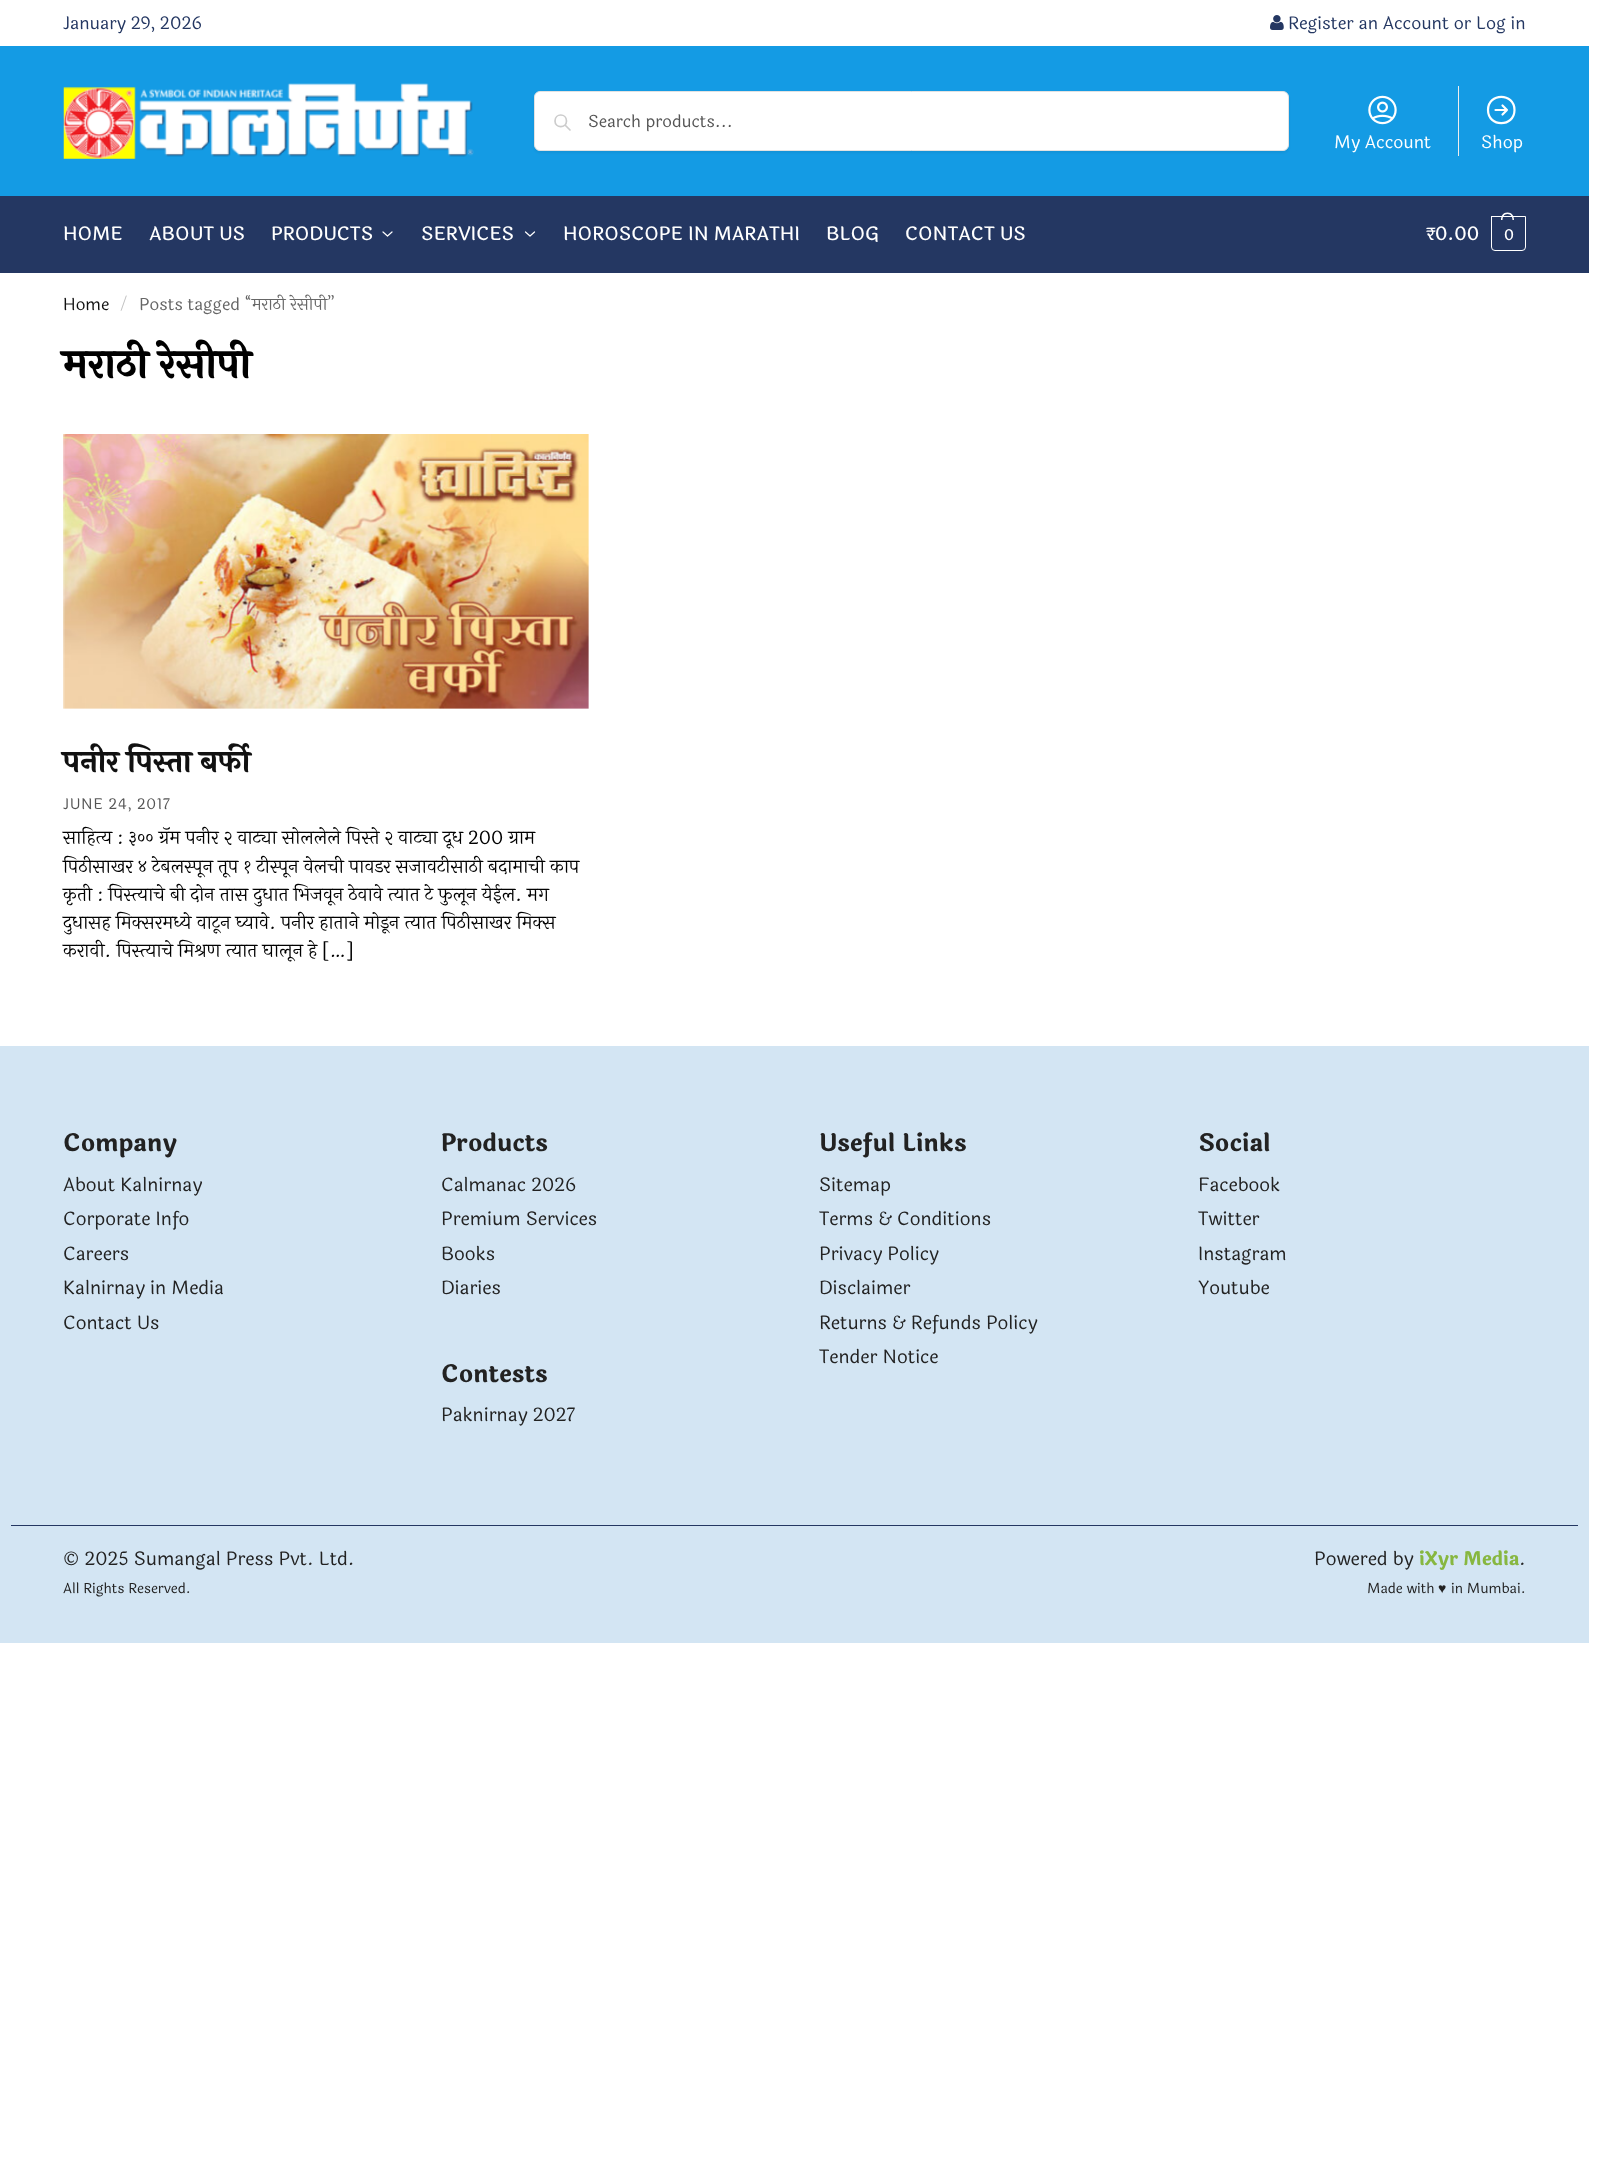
async function draw(canvas) {
  canvas.width = 1607;
  canvas.height = 2170;
  const ctx = canvas.getContext('2d');
  ctx.miterLimit = 4;
  ctx.fontKerning = 'normal';
  function label(s, x, y, font, color) {
    ctx.font = font;
    ctx.fillStyle = color;
    ctx.fillText(s, x, y);
  }
  function rect(x, y, w, h, color) {
    ctx.fillStyle = color;
    ctx.fillRect(x, y, w, h);
  }
  async function image(src, x, y, w, h) {
    const img = new Image();
    img.src = src;
    await img.decode();
    ctx.drawImage(img, x, y, w, h);
  }
  let path;

  rect(0, 0, 1607, 2170, '#fff');
  label('January 29, 2026', 63, 29, '17.5px Laila', '#243762');
  await image('assets/img1.png', 1270, 15, 14, 15);
  label('Register an Account or Log in', 1288, 29, '17.5px Laila', '#243762');
  rect(0, 46, 1589, 150, '#149be4');
  await image('assets/img2.png', 63, 83, 411, 76);
  ctx.fillStyle = '#0000000d';
  ctx.filter = 'blur(1px)';
  ctx.beginPath();
  ctx.roundRect(534, 93, 755, 60, 6);
  ctx.fill();
  ctx.filter = 'none';
  ctx.fillStyle = '#fff';
  ctx.beginPath();
  ctx.roundRect(534.5, 91.5, 754, 59, 5.5);
  ctx.fill();
  ctx.strokeStyle = '#e2e2e2';
  ctx.stroke();
  path = new Path2D('M570 130L565 125M566.5 121C566.5 128.5 555 128.5 555 121C555 113 566.5 113 566.5 121Z');
  ctx.strokeStyle = '#ccc';
  ctx.lineWidth = 1.7;
  ctx.lineCap = 'round';
  ctx.lineJoin = 'round';
  ctx.stroke(path);
  label('Search products...', 588, 127, '16.75px Laila', '#555');
  await image('assets/img3.png', 1368, 95, 29, 30);
  label('My Account', 1334, 148, '17.5px Laila', '#fff');
  rect(1458, 86, 1, 70, '#eee');
  path = new Path2D('M1502.5 105.5L1507 110M1507 110L1502.5 114.5M1507 110H1495.5M1514.5 110C1514.5 127.5 1488 127.5 1488 110C1488 92.5 1514.5 92.5 1514.5 110Z');
  ctx.strokeStyle = '#fff';
  ctx.lineWidth = 2.2;
  ctx.stroke(path);
  label('Shop', 1481, 148, '17.5px Laila', '#fff');
  rect(0, 196, 1589, 77, '#243762');
  label('HOME', 63, 240, '500 18.75px Laila', '#fff');
  label('ABOUT US', 149, 240, '500 18.75px Laila', '#fff');
  label('PRODUCTS', 271, 240, '500 18.75px Laila', '#fff');
  path = new Path2D('M392 232L387.5 236L383 232');
  ctx.lineWidth = 1.2;
  ctx.stroke(path);
  label('SERVICES', 421, 240, '500 18.75px Laila', '#fff');
  path = new Path2D('M534.5 232L530 236L525.5 232');
  ctx.stroke(path);
  label('HOROSCOPE IN MARATHI', 563, 240, '500 18.75px Laila', '#fff');
  label('BLOG', 826, 240, '500 18.75px Laila', '#fff');
  label('CONTACT US', 905, 240, '500 18.75px Laila', '#fff');
  label('₹0.00', 1426, 240, '500 18.75px Laila', '#fff');
  ctx.beginPath();
  ctx.roundRect(1491.5, 216.5, 34, 34, [0, 0, 3.5, 3.5]);
  ctx.lineWidth = 1;
  ctx.lineJoin = 'miter';
  ctx.stroke();
  path = new Path2D('M1507.5 212.5C1512 212.5 1514 216 1514 220H1501C1501 216 1503 212.5 1507.5 212.5ZM1507.5 214C1511 214 1512.5 217 1512.5 220H1502.5C1502.5 217 1504 214 1507.5 214Z');
  ctx.fill(path, 'evenodd');
  ctx.letterSpacing = '-1px';
  label('0', 1504, 240, '500 15px Laila', '#fff');
  ctx.letterSpacing = '0px';
  label('Home', 63, 310, '16.9px Laila', '#111');
  label('/', 120, 309, '14px Laila', '#c2c2c2');
  label('Posts tagged “मराठी रेसीपी”', 139, 310, '16.9px Laila', '#666');
  label('मराठी रेसीपी', 63, 378, 'bold 40px Laila', '#000');
  await image('assets/img4.png', 63, 434, 526, 275);
  label('पनीर पिस्ता बर्फी', 63, 772, 'bold 30px Laila', '#111');
  ctx.letterSpacing = '0.75px';
  label('JUNE 24, 2017', 63, 809, '15px Laila', '#555');
  ctx.letterSpacing = '0px';
  label('साहित्य : ३०० ग्रॅम पनीर २ वाट्या सोललेले पिस्ते २ वाट्या दूध 200 ग्राम', 63, 844, '18.75px Laila', '#000');
  label('पिठीसाखर ४ टेबलस्पून तूप १ टीस्पून वेलची पावडर सजावटीसाठी बदामाची काप', 63, 873, '18.75px Laila', '#000');
  label('कृती : पिस्त्याचे बी दोन तास दुधात भिजवून ठेवावे त्यात टे फुलून येईल. मग', 63, 901, '18.75px Laila', '#000');
  label('दुधासह मिक्सरमध्ये वाटून घ्यावे. पनीर हाताने मोडून त्यात पिठीसाखर मिक्स', 63, 929, '18.75px Laila', '#000');
  label('करावी. पिस्त्याचे मिश्रण त्यात घालून हे […]', 63, 957, '18.75px Laila', '#000');
  rect(0, 1046, 1589, 597, '#d3e5f3');
  label('Company', 63, 1151, 'bold 24px Laila', '#222');
  label('About Kalnirnay', 63, 1191, '18.75px Laila', '#222');
  label('Corporate Info', 63, 1225, '18.75px Laila', '#222');
  label('Careers', 63, 1260, '18.75px Laila', '#222');
  label('Kalnirnay in Media', 63, 1294, '18.75px Laila', '#222');
  label('Contact Us', 63, 1329, '18.75px Laila', '#222');
  label('Products', 441, 1151, 'bold 24px Laila', '#222');
  label('Calmanac 2026', 441, 1191, '18.75px Laila', '#222');
  label('Premium Services', 441, 1225, '18.75px Laila', '#222');
  label('Books', 441, 1260, '18.75px Laila', '#222');
  label('Diaries', 441, 1294, '18.75px Laila', '#222');
  label('Contests', 441, 1382, 'bold 24px Laila', '#222');
  label('Paknirnay 2027', 441, 1421, '18.75px Laila', '#222');
  label('Useful Links', 819, 1151, 'bold 24px Laila', '#222');
  label('Sitemap', 819, 1191, '18.75px Laila', '#222');
  label('Terms & Conditions', 819, 1225, '18.75px Laila', '#222');
  label('Privacy Policy', 819, 1260, '18.75px Laila', '#222');
  label('Disclaimer', 819, 1294, '18.75px Laila', '#222');
  label('Returns & Refunds Policy', 819, 1329, '18.75px Laila', '#222');
  label('Tender Notice', 819, 1363, '18.75px Laila', '#222');
  label('Social', 1198, 1151, 'bold 24px Laila', '#222');
  label('Facebook', 1198, 1191, '18.75px Laila', '#222');
  label('Twitter', 1198, 1225, '18.75px Laila', '#222');
  label('Instagram', 1198, 1260, '18.75px Laila', '#222');
  label('Youtube', 1198, 1294, '18.75px Laila', '#222');
  rect(11, 1525, 1567, 1, '#243762');
  label('© 2025 Sumangal Press Pvt. Ltd.', 63, 1565, '18.75px Laila', '#222');
  label('All Rights Reserved.', 63, 1593, '14px Laila', '#222');
  label('Powered by', 1314, 1565, '18.75px Laila', '#222');
  label('iXyr Media', 1419, 1565, 'bold 18.75px Laila', '#87b740');
  label('.', 1519, 1565, '18.75px Laila', '#222');
  label('Made with', 1367, 1593, '14px Laila', '#222');
  label('♥', 1438, 1593, '14px Liberation Serif', '#222');
  label('in Mumbai.', 1451, 1593, '14px Laila', '#222');
}

draw(document.querySelector('canvas'));
